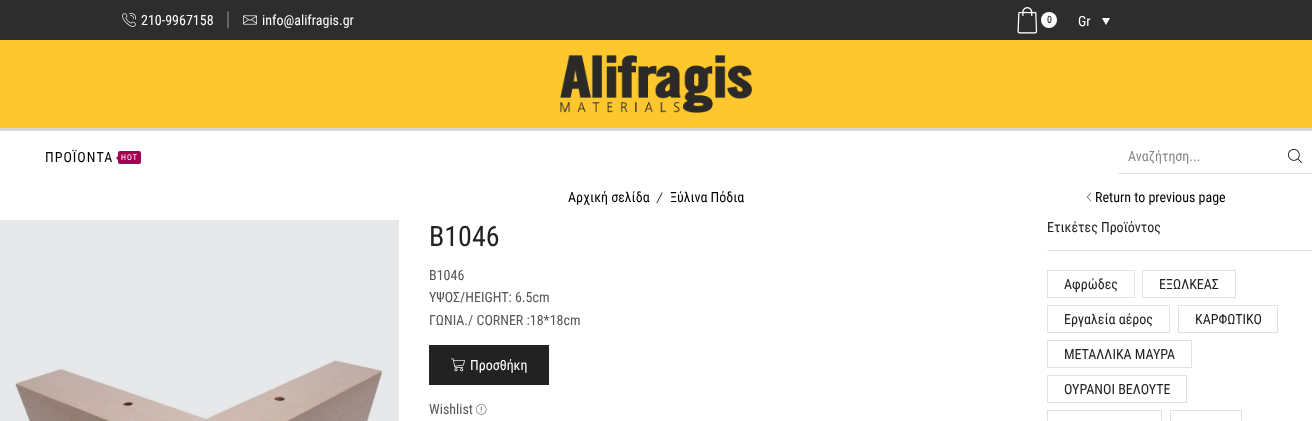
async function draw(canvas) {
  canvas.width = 1312;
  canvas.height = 421;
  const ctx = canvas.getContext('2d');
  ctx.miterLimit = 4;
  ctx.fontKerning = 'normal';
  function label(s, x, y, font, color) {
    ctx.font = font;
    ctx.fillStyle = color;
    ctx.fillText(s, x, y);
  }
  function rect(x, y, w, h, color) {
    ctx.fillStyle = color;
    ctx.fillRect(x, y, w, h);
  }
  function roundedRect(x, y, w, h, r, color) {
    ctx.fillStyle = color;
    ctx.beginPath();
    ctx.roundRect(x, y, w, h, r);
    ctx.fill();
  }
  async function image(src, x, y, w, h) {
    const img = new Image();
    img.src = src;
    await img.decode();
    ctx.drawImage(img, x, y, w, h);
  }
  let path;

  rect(0, 0, 1312, 421, '#fff');
  rect(0, 0, 1312, 40, '#2d2d2d');
  await image('assets/img1.png', 122, 13, 14, 14);
  label('210-9967158', 141, 25, '14px Roboto Condensed', '#fff');
  label('│', 223, 24, '14px Liberation Serif', '#969696');
  await image('assets/img2.png', 243, 15, 14, 10);
  label('info@alifragis.gr', 262, 25, '14px Roboto Condensed', '#fff');
  await image('assets/img3.png', 1017, 7, 21, 27);
  ctx.beginPath();
  ctx.arc(1049, 20, 8, 0, 2 * Math.PI);
  ctx.fill();
  label('0', 1047, 23, '10px Roboto Condensed', '#000');
  label('Gr', 1078, 26, '14px Roboto Condensed', '#fff');
  path = new Path2D('M1102 18H1110L1106 25Z');
  ctx.fill(path);
  rect(0, 40, 1312, 88, '#fdc72d');
  rect(0, 128, 1312, 3, '#d9d7d7');
  await image('assets/img4.png', 560, 55, 192, 58);
  ctx.letterSpacing = '1px';
  label('ΠΡΟΪΟΝΤΑ', 45, 162, '14px Roboto Condensed', '#000');
  roundedRect(118, 151, 23, 13, 2, '#a4004f');
  path = new Path2D('M119 155V161L116 158Z');
  ctx.fill(path);
  label('HOT', 121, 160, '8px Roboto Condensed', '#fff');
  rect(1118, 173, 194, 1, '#e1e1e1');
  ctx.letterSpacing = '0px';
  label('Αναζήτηση...', 1128, 161, '14px Roboto Condensed', '#888');
  await image('assets/img5.png', 1288, 149, 14, 14);
  label('Αρχική σελίδα', 568, 202, '14px Roboto Condensed', '#000');
  label('/', 657, 203, 'italic 16px Liberation Serif', '#000');
  label('Ξύλινα Πόδια', 670, 202, '14px Roboto Condensed', '#000');
  await image('assets/img6.png', 1087, 193, 4, 8);
  label('Return to previous page', 1095, 202, '14px Roboto Condensed', '#000');
  await image('assets/img7.png', 0, 220, 399, 201);
  label('B1046', 429, 246, '28px Roboto Condensed', '#222');
  label('B1046', 429, 280, '14px Roboto Condensed', '#555');
  label('ΥΨΟΣ/HEIGHT: 6.5cm', 429, 302, '14px Roboto Condensed', '#555');
  label('ΓΩΝΙΑ./ CORNER :18*18cm', 429, 325, '14px Roboto Condensed', '#555');
  rect(429, 345, 120, 40, '#222');
  await image('assets/img8.png', 451, 358, 14, 14);
  label('Προσθήκη', 470, 370, '14px Roboto Condensed', '#fff');
  label('Wishlist', 429, 414, '14px Roboto Condensed', '#555');
  await image('assets/img9.png', 476, 404, 11, 11);
  rect(1047, 250, 265, 1, '#e1e1e1');
  label('Ετικέτες Προϊόντος', 1047, 232, '14px Roboto Condensed', '#222');
  ctx.strokeStyle = '#e1e1e1';
  ctx.strokeRect(1047.5, 270.5, 87, 27);
  label('Αφρώδες', 1064, 289, '14px Roboto Condensed', '#222');
  ctx.strokeRect(1142.5, 270.5, 93, 27);
  label('ΕΞΩΛΚΕΑΣ', 1159, 289, '14px Roboto Condensed', '#222');
  ctx.strokeRect(1047.5, 305.5, 122, 27);
  label('Εργαλεία αέρος', 1064, 324, '14px Roboto Condensed', '#222');
  ctx.strokeRect(1178.5, 305.5, 99, 27);
  label('ΚΑΡΦΩΤΙΚΟ', 1195, 324, '14px Roboto Condensed', '#222');
  ctx.strokeRect(1047.5, 340.5, 144, 27);
  label('ΜΕΤΑΛΛΙΚΑ ΜΑΥΡΑ', 1064, 359, '14px Roboto Condensed', '#222');
  ctx.strokeRect(1047.5, 375.5, 139, 27);
  label('ΟΥΡΑΝΟΙ ΒΕΛΟΥΤΕ', 1064, 394, '14px Roboto Condensed', '#222');
  ctx.strokeRect(1047.5, 410.5, 114, 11);
  ctx.strokeRect(1170.5, 410.5, 71, 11);
}

draw(document.querySelector('canvas'));
